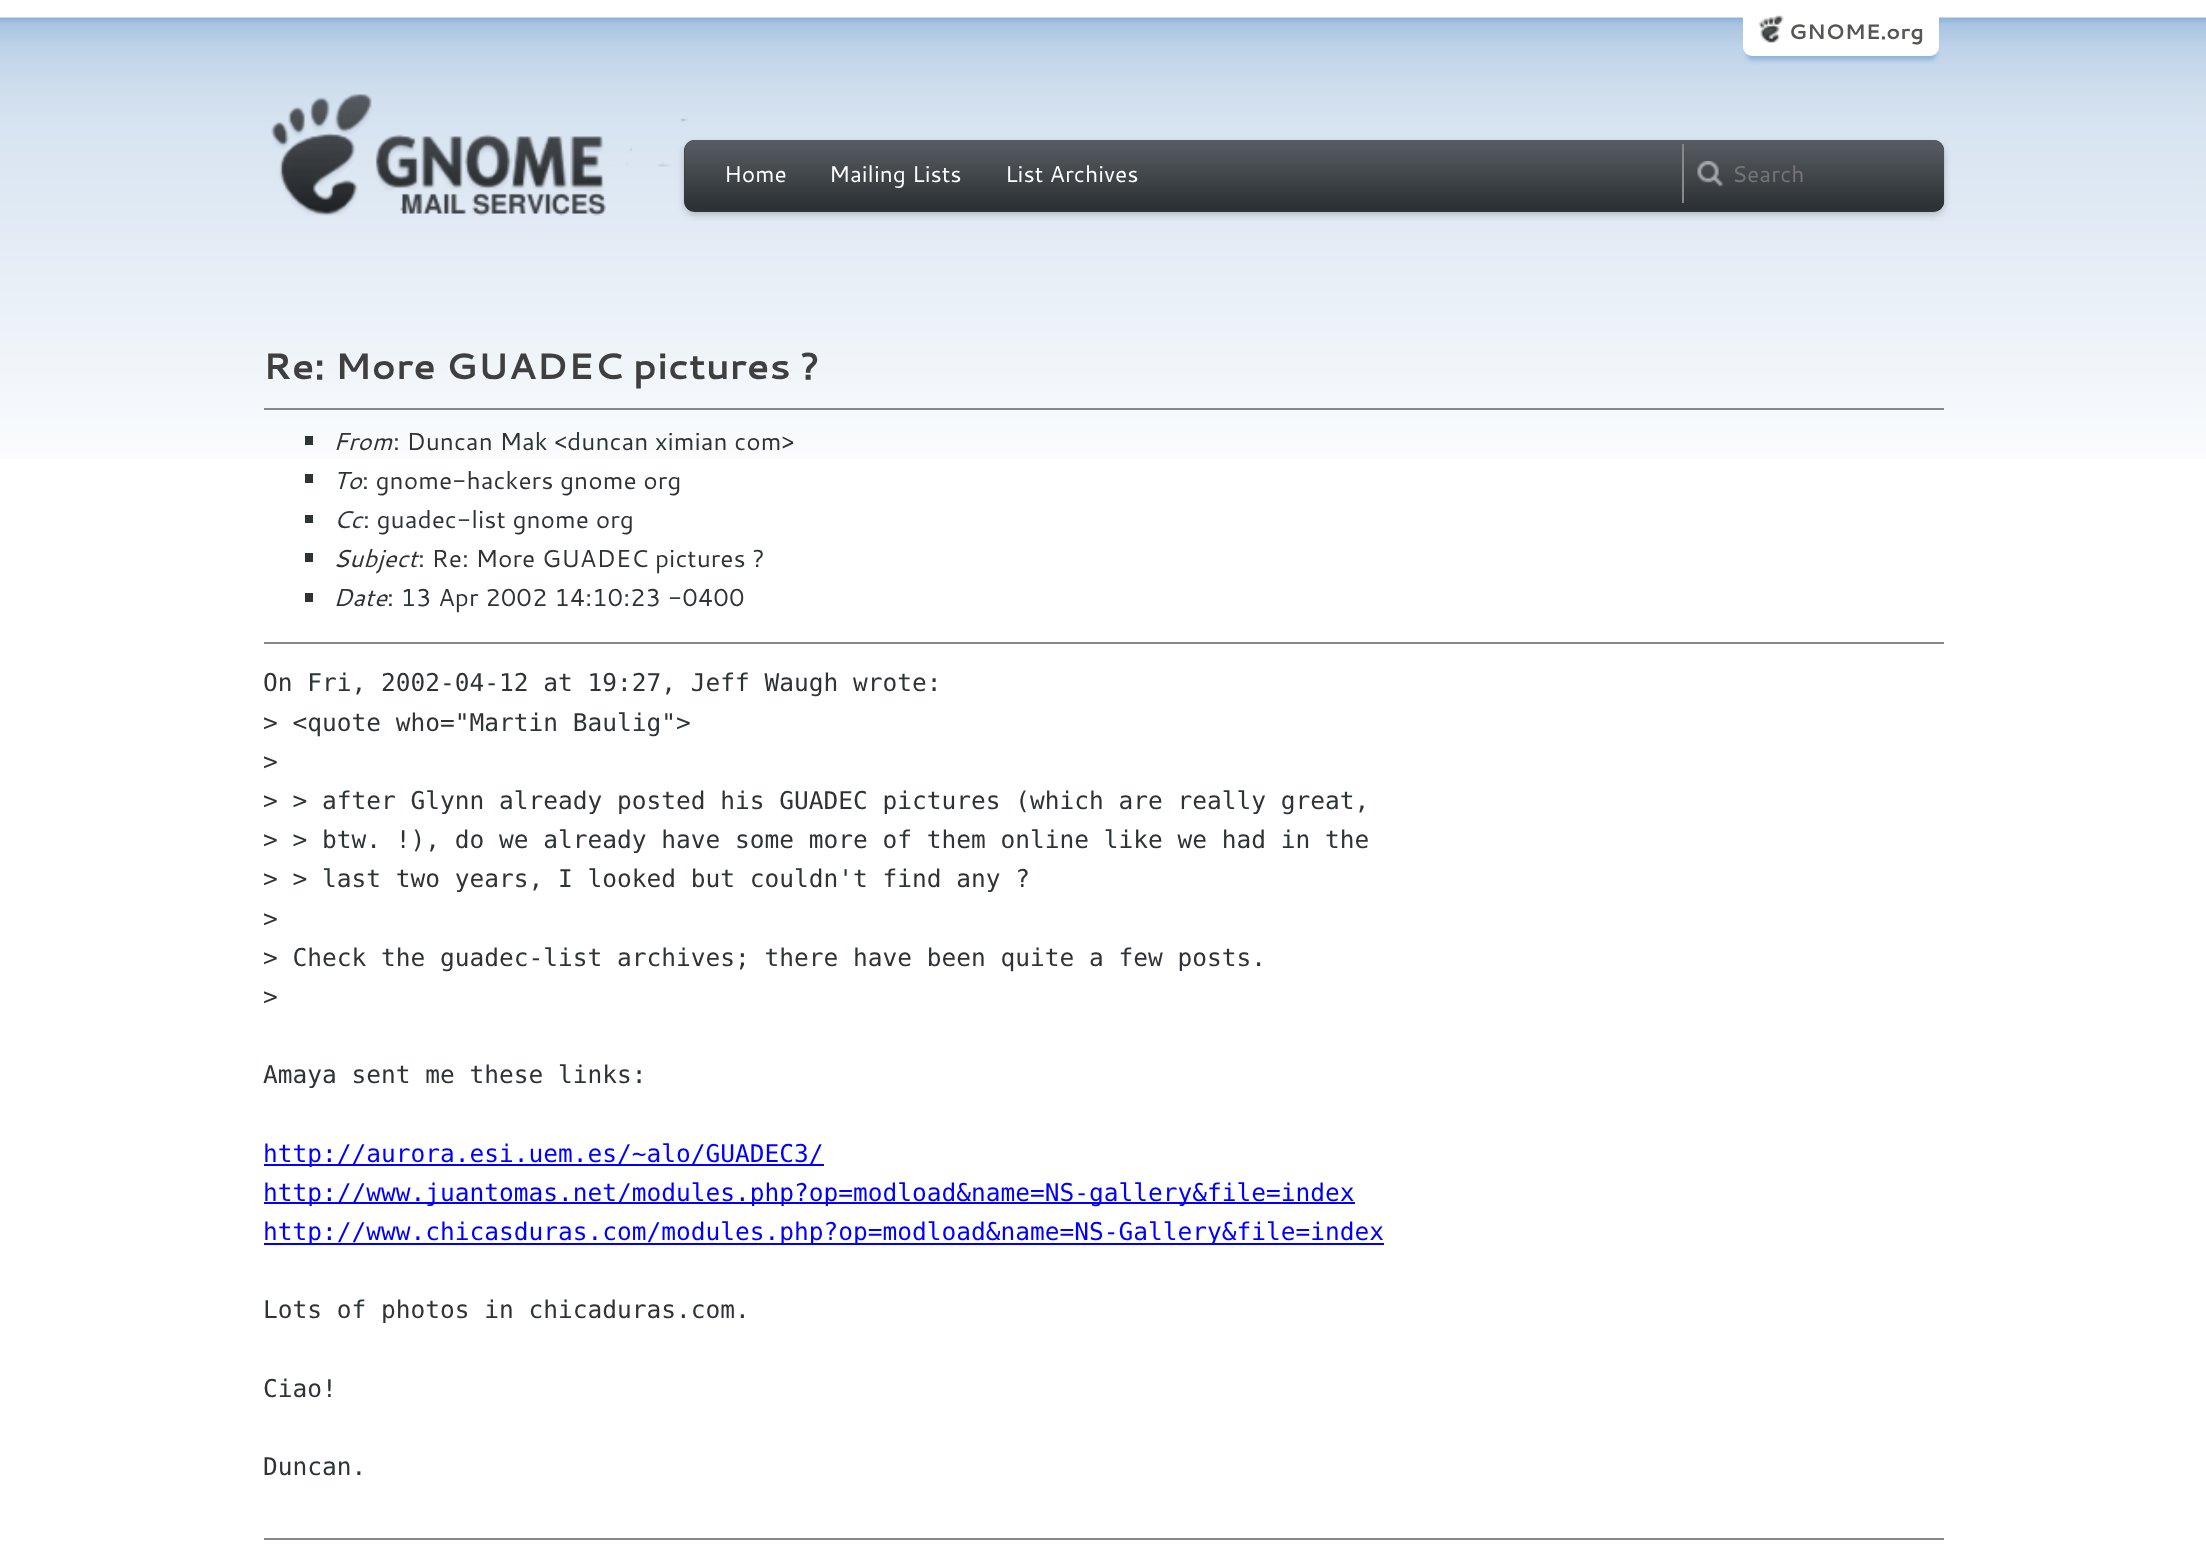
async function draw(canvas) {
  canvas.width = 2206;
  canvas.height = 1544;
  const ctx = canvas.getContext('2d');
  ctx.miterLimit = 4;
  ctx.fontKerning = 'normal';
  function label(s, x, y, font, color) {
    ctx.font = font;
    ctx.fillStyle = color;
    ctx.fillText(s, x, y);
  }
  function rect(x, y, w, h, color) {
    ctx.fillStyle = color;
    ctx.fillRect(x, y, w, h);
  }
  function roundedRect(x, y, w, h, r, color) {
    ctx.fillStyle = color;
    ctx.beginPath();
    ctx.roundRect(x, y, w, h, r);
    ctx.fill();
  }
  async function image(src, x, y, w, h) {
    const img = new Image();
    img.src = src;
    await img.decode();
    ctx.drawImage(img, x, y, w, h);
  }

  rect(0, 0, 2206, 1544, '#fff');
  await image('assets/img1.png', 0, 17, 2206, 442);
  ctx.fillStyle = '#8fb3d9';
  ctx.filter = 'blur(2px)';
  ctx.beginPath();
  ctx.roundRect(1747, 18, 189, 42, 5);
  ctx.fill();
  ctx.filter = 'none';
  roundedRect(1743, 7, 196, 49, 9, '#fff');
  await image('assets/img2.png', 1758, 15, 26, 28);
  label('GNOME.org', 1789, 39, 'bold 21px Cantarell', '#555753');
  await image('assets/img3.png', 271, 94, 417, 122);
  ctx.fillStyle = '#00000033';
  ctx.filter = 'blur(3.5px)';
  ctx.beginPath();
  ctx.roundRect(684, 144, 1260, 71, 11);
  ctx.fill();
  ctx.filter = 'none';
  roundedRect(684, 140, 1260, 72, 11, '#2e3436');
  await image('assets/img4.png', 684, 140, 1261, 70);
  label('Home', 724, 182, '22.75px Cantarell', '#fff');
  label('Mailing Lists', 829, 182, '22.75px Cantarell', '#fff');
  label('List Archives', 1005, 182, '22.75px Cantarell', '#fff');
  await image('assets/img5.png', 1697, 161, 27, 26);
  rect(1682, 144, 2, 59, '#888');
  label('Search', 1732, 182, '22.75px Cantarell', '#757575');
  label('Re: More GUADEC pictures ?', 263, 379, 'bold 36.75px Cantarell', '#3f3f3f');
  rect(264, 408, 1680, 2, '#888');
  rect(305, 436, 8, 9, '#2e3436');
  label('From', 333, 450, 'italic 24.5px Cantarell', '#2e3436');
  label(': Duncan Mak <duncan ximian com>', 393, 450, '24.5px Cantarell', '#2e3436');
  rect(305, 474, 8, 9, '#2e3436');
  label('To', 333, 489, 'italic 24.5px Cantarell', '#2e3436');
  label(': gnome-hackers gnome org', 362, 489, '24.5px Cantarell', '#2e3436');
  rect(305, 515, 8, 8, '#2e3436');
  label('Cc', 333, 528, 'italic 24.5px Cantarell', '#2e3436');
  label(': guadec-list gnome org', 363, 528, '24.5px Cantarell', '#2e3436');
  rect(305, 553, 8, 9, '#2e3436');
  label('Subject', 333, 567, 'italic 24.5px Cantarell', '#2e3436');
  label(': Re: More GUADEC pictures ?', 418, 567, '24.5px Cantarell', '#2e3436');
  rect(305, 593, 8, 9, '#2e3436');
  label('Date', 333, 606, 'italic 24.5px Cantarell', '#2e3436');
  label(': 13 Apr 2002 14:10:23 -0400', 387, 606, '24.5px Cantarell', '#2e3436');
  rect(264, 642, 1680, 2, '#888');
  label('On Fri, 2002-04-12 at 19:27, Jeff Waugh wrote:', 263, 691, '24.5px DejaVu Sans Mono', '#2e3436');
  label('> <quote who="Martin Baulig">', 263, 731, '24.5px DejaVu Sans Mono', '#2e3436');
  label('>', 263, 770, '24.5px DejaVu Sans Mono', '#2e3436');
  label('> > after Glynn already posted his GUADEC pictures (which are really great,', 263, 809, '24.5px DejaVu Sans Mono', '#2e3436');
  label('> > btw. !), do we already have some more of them online like we had in the', 263, 848, '24.5px DejaVu Sans Mono', '#2e3436');
  label('> > last two years, I looked but couldn\'t find any ?', 263, 887, '24.5px DejaVu Sans Mono', '#2e3436');
  label('>', 263, 927, '24.5px DejaVu Sans Mono', '#2e3436');
  label('> Check the guadec-list archives; there have been quite a few posts.', 263, 966, '24.5px DejaVu Sans Mono', '#2e3436');
  label('>', 263, 1005, '24.5px DejaVu Sans Mono', '#2e3436');
  label('Amaya sent me these links:', 263, 1083, '24.5px DejaVu Sans Mono', '#2e3436');
  rect(264, 1164, 560, 2, '#00f');
  label('http://aurora.esi.uem.es/~alo/GUADEC3/', 263, 1162, '24.5px DejaVu Sans Mono', '#00f');
  rect(264, 1202, 1091, 2, '#00f');
  label('http://www.juantomas.net/modules.php?op=modload&name=NS-gallery&file=index', 263, 1201, '24.5px DejaVu Sans Mono', '#00f');
  rect(264, 1243, 1120, 2, '#00f');
  label('http://www.chicasduras.com/modules.php?op=modload&name=NS-Gallery&file=index', 263, 1240, '24.5px DejaVu Sans Mono', '#00f');
  label('Lots of photos in chicaduras.com.', 263, 1318, '24.5px DejaVu Sans Mono', '#2e3436');
  label('Ciao!', 263, 1397, '24.5px DejaVu Sans Mono', '#2e3436');
  label('Duncan.', 263, 1475, '24.5px DejaVu Sans Mono', '#2e3436');
  rect(264, 1538, 1680, 2, '#888');
}

draw(document.querySelector('canvas'));
